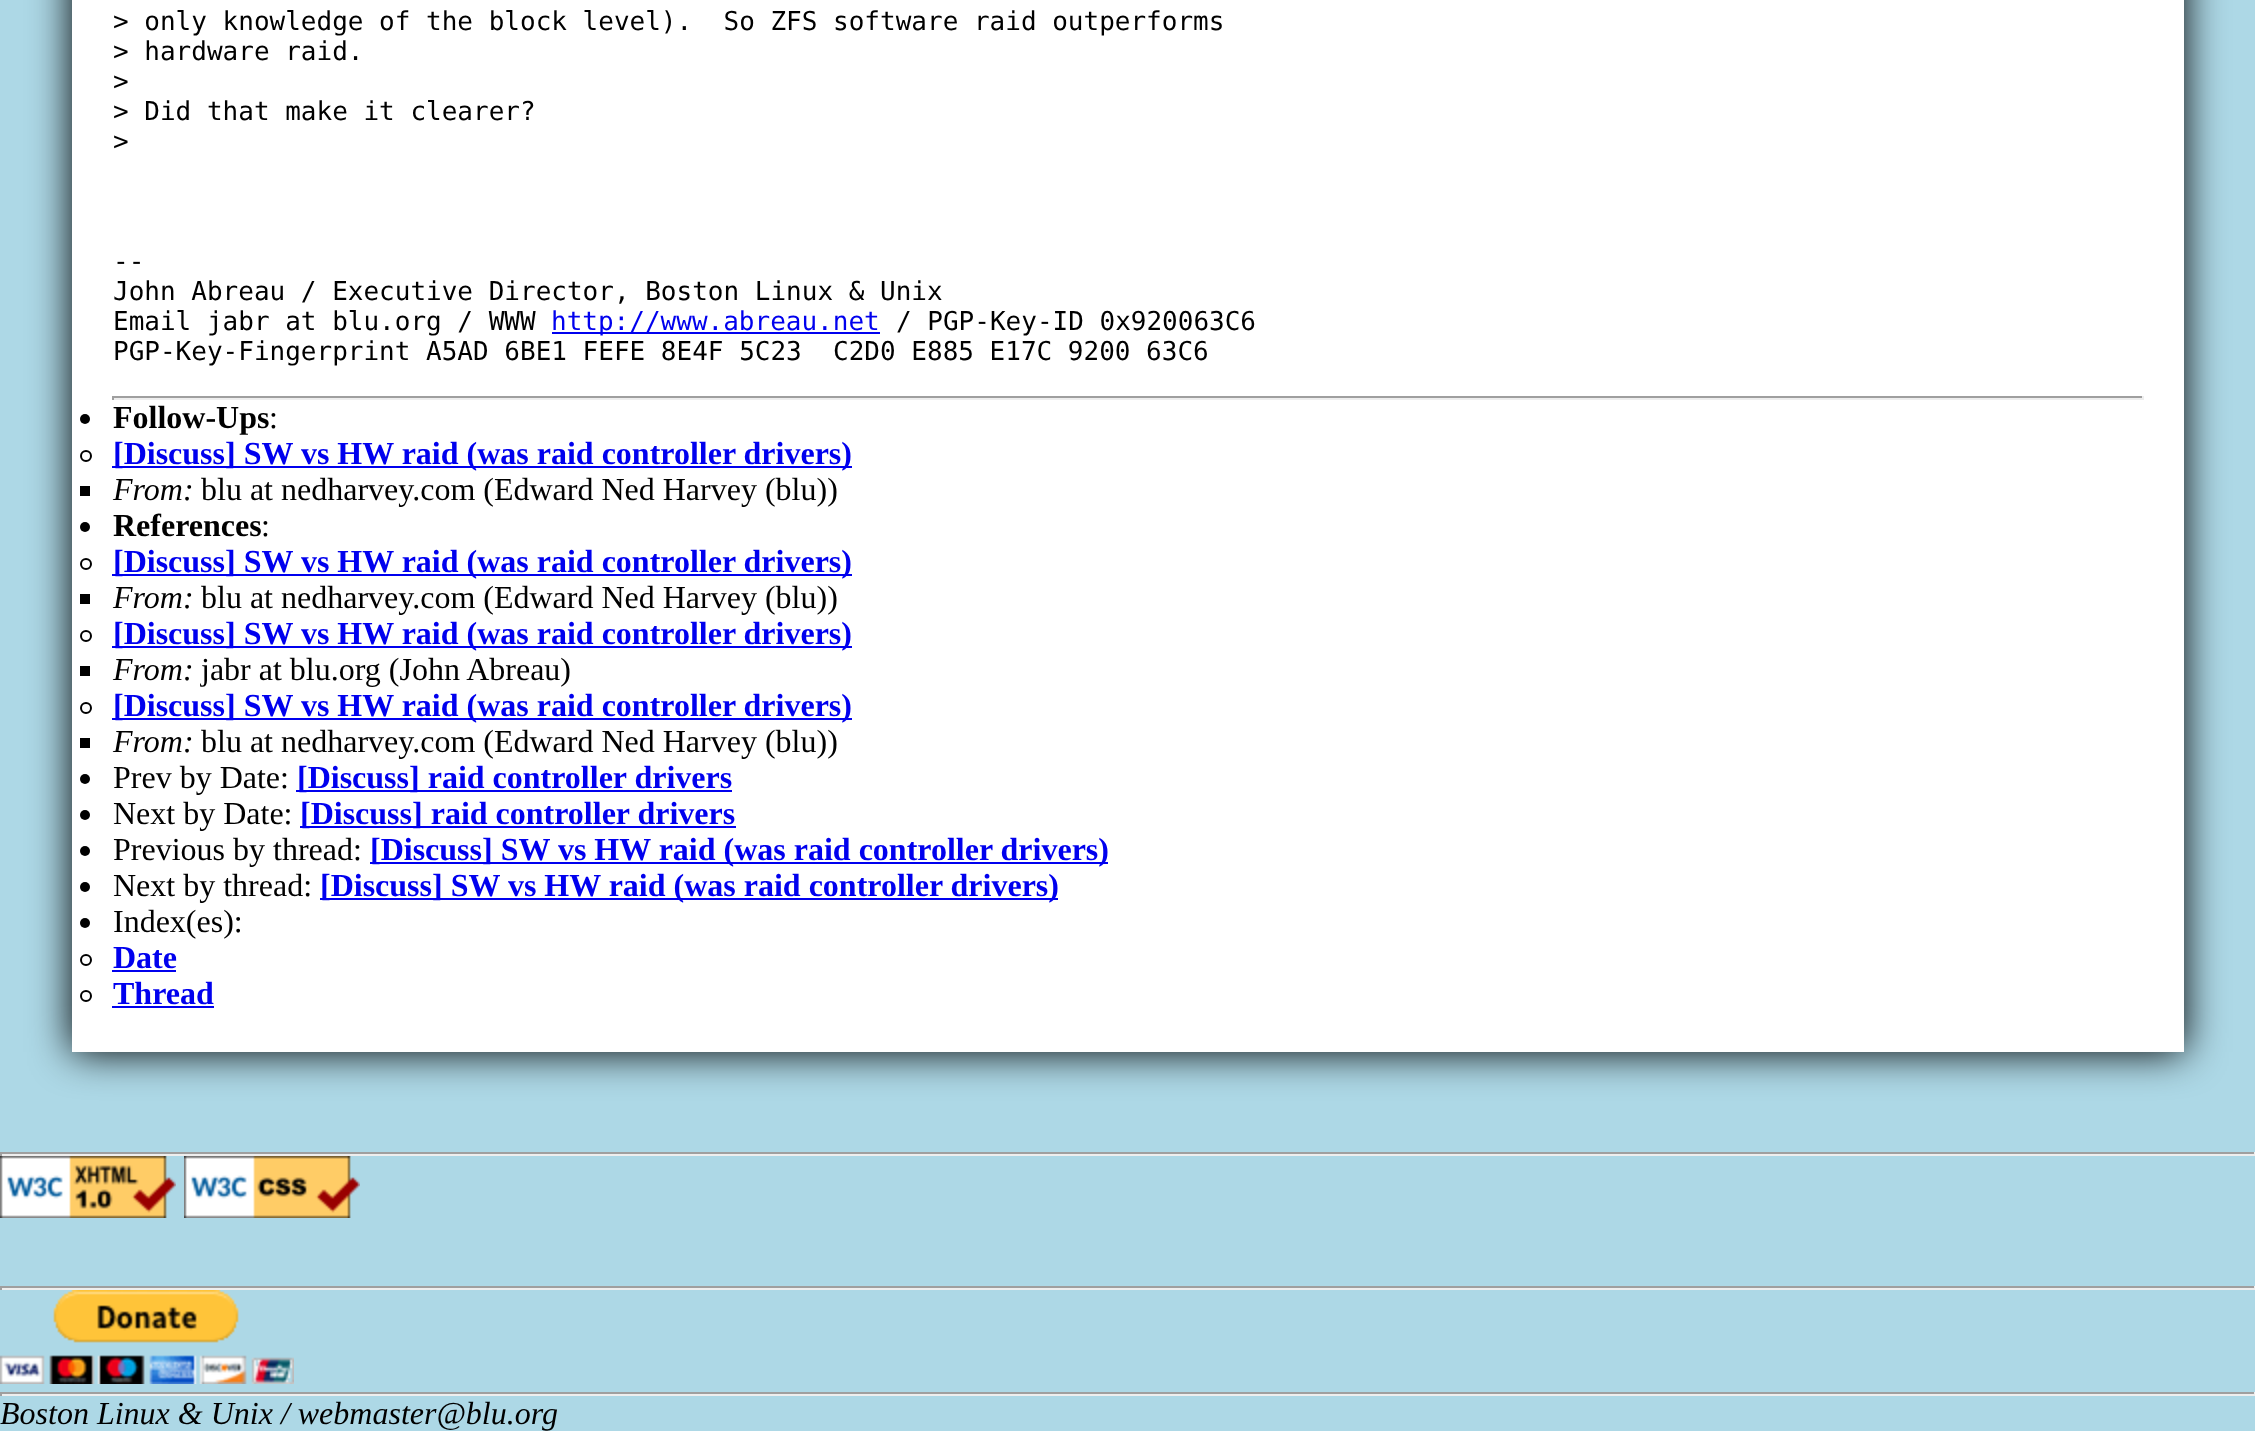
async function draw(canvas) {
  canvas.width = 2255;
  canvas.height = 1431;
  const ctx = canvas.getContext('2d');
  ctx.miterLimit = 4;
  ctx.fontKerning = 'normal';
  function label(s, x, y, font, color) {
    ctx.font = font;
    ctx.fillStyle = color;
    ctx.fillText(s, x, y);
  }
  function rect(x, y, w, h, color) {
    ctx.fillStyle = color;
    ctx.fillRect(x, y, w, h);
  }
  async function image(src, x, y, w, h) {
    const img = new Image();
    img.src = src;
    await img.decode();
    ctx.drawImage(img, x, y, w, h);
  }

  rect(0, 0, 2255, 1431, '#add8e6');
  ctx.fillStyle = '#000';
  ctx.filter = 'blur(20px)';
  ctx.beginPath();
  ctx.rect(72, -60, 2112, 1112);
  ctx.fill();
  ctx.filter = 'none';
  rect(72, 0, 2112, 1052, '#fff');
  label('> only knowledge of the block level).  So ZFS software raid outperforms', 113, 30, '26px DejaVu Sans Mono', '#000');
  label('> hardware raid.', 113, 60, '26px DejaVu Sans Mono', '#000');
  label('>', 113, 90, '26px DejaVu Sans Mono', '#000');
  label('> Did that make it clearer?', 113, 120, '26px DejaVu Sans Mono', '#000');
  label('>', 113, 150, '26px DejaVu Sans Mono', '#000');
  label('--', 113, 270, '26px DejaVu Sans Mono', '#000');
  label('John Abreau / Executive Director, Boston Linux & Unix', 113, 300, '26px DejaVu Sans Mono', '#000');
  label('Email jabr at blu.org / WWW', 113, 330, '26px DejaVu Sans Mono', '#000');
  rect(552, 332, 328, 2, '#00e');
  label('http://www.abreau.net', 551, 330, '26px DejaVu Sans Mono', '#00e');
  label('/ PGP-Key-ID 0x920063C6', 896, 330, '26px DejaVu Sans Mono', '#000');
  label('PGP-Key-Fingerprint A5AD 6BE1 FEFE 8E4F 5C23  C2D0 E885 E17C 9200 63C6', 113, 360, '26px DejaVu Sans Mono', '#000');
  rect(112, 396, 2032, 2, '#9f9f9f');
  rect(2142, 396, 2, 4, '#eee');
  rect(112, 398, 2032, 2, '#eee');
  rect(112, 396, 2, 4, '#9f9f9f');
  ctx.fillStyle = '#000';
  ctx.beginPath();
  ctx.arc(85, 419, 5, 0, 2 * Math.PI);
  ctx.fill();
  label('Follow-Ups', 113, 428, 'bold 32px Liberation Serif', '#000');
  label(':', 269, 428, '32px Liberation Serif', '#000');
  ctx.beginPath();
  ctx.arc(86, 456, 5, 0, 2 * Math.PI);
  ctx.strokeStyle = '#000';
  ctx.lineWidth = 2;
  ctx.stroke();
  rect(112, 466, 740, 2, '#00e');
  label('[Discuss] SW vs HW raid (was raid controller drivers)', 113, 464, 'bold 32px Liberation Serif', '#00e');
  rect(80, 486, 10, 10, '#000');
  label('From:', 113, 500, 'italic 32px Liberation Serif', '#000');
  label('blu at nedharvey.com (Edward Ned Harvey (blu))', 201, 500, '32px Liberation Serif', '#000');
  ctx.beginPath();
  ctx.arc(85, 527, 5, 0, 2 * Math.PI);
  ctx.fill();
  label('References', 113, 536, 'bold 32px Liberation Serif', '#000');
  label(':', 261, 536, '32px Liberation Serif', '#000');
  ctx.beginPath();
  ctx.arc(86, 564, 5, 0, 2 * Math.PI);
  ctx.stroke();
  rect(112, 574, 740, 2, '#00e');
  label('[Discuss] SW vs HW raid (was raid controller drivers)', 113, 572, 'bold 32px Liberation Serif', '#00e');
  rect(80, 594, 10, 10, '#000');
  label('From:', 113, 608, 'italic 32px Liberation Serif', '#000');
  label('blu at nedharvey.com (Edward Ned Harvey (blu))', 201, 608, '32px Liberation Serif', '#000');
  ctx.beginPath();
  ctx.arc(86, 636, 5, 0, 2 * Math.PI);
  ctx.stroke();
  rect(112, 646, 740, 2, '#00e');
  label('[Discuss] SW vs HW raid (was raid controller drivers)', 113, 644, 'bold 32px Liberation Serif', '#00e');
  rect(80, 666, 10, 10, '#000');
  label('From:', 113, 680, 'italic 32px Liberation Serif', '#000');
  label('jabr at blu.org (John Abreau)', 201, 680, '32px Liberation Serif', '#000');
  ctx.beginPath();
  ctx.arc(86, 708, 5, 0, 2 * Math.PI);
  ctx.stroke();
  rect(112, 718, 740, 2, '#00e');
  label('[Discuss] SW vs HW raid (was raid controller drivers)', 113, 716, 'bold 32px Liberation Serif', '#00e');
  rect(80, 738, 10, 10, '#000');
  label('From:', 113, 752, 'italic 32px Liberation Serif', '#000');
  label('blu at nedharvey.com (Edward Ned Harvey (blu))', 201, 752, '32px Liberation Serif', '#000');
  ctx.beginPath();
  ctx.arc(85, 779, 5, 0, 2 * Math.PI);
  ctx.fill();
  label('Prev by Date:', 113, 788, '32px Liberation Serif', '#000');
  rect(296, 790, 436, 2, '#00e');
  label('[Discuss] raid controller drivers', 297, 788, 'bold 32px Liberation Serif', '#00e');
  ctx.fillStyle = '#000';
  ctx.beginPath();
  ctx.arc(85, 815, 5, 0, 2 * Math.PI);
  ctx.fill();
  label('Next by Date:', 113, 824, '32px Liberation Serif', '#000');
  rect(300, 826, 436, 2, '#00e');
  label('[Discuss] raid controller drivers', 300, 824, 'bold 32px Liberation Serif', '#00e');
  ctx.fillStyle = '#000';
  ctx.beginPath();
  ctx.arc(85, 851, 5, 0, 2 * Math.PI);
  ctx.fill();
  label('Previous by thread:', 113, 860, '32px Liberation Serif', '#000');
  rect(370, 862, 738, 2, '#00e');
  label('[Discuss] SW vs HW raid (was raid controller drivers)', 370, 860, 'bold 32px Liberation Serif', '#00e');
  ctx.fillStyle = '#000';
  ctx.beginPath();
  ctx.arc(85, 887, 5, 0, 2 * Math.PI);
  ctx.fill();
  label('Next by thread:', 113, 896, '32px Liberation Serif', '#000');
  rect(320, 898, 738, 2, '#00e');
  label('[Discuss] SW vs HW raid (was raid controller drivers)', 320, 896, 'bold 32px Liberation Serif', '#00e');
  ctx.fillStyle = '#000';
  ctx.beginPath();
  ctx.arc(85, 923, 5, 0, 2 * Math.PI);
  ctx.fill();
  label('Index(es):', 113, 932, '32px Liberation Serif', '#000');
  ctx.beginPath();
  ctx.arc(86, 960, 5, 0, 2 * Math.PI);
  ctx.stroke();
  label('Date', 113, 968, 'bold 32px Liberation Serif', '#00e');
  rect(112, 970, 64, 2, '#00e');
  ctx.beginPath();
  ctx.arc(86, 996, 5, 0, 2 * Math.PI);
  ctx.stroke();
  label('Thread', 113, 1004, 'bold 32px Liberation Serif', '#00e');
  rect(112, 1006, 102, 2, '#00e');
  rect(0, 1152, 2255, 2, '#9f9f9f');
  rect(2254, 1152, 1, 4, '#eee');
  rect(0, 1154, 2255, 2, '#eee');
  rect(0, 1152, 2, 4, '#9f9f9f');
  await image('assets/img1.png', 0, 1156, 176, 62);
  await image('assets/img2.png', 184, 1156, 176, 62);
  rect(0, 1286, 2255, 2, '#9f9f9f');
  rect(2254, 1286, 1, 4, '#eee');
  rect(0, 1288, 2255, 2, '#eee');
  rect(0, 1286, 2, 4, '#9f9f9f');
  await image('assets/img3.png', 0, 1290, 294, 94);
  rect(0, 1392, 2255, 2, '#9f9f9f');
  rect(2254, 1392, 1, 4, '#eee');
  rect(0, 1394, 2255, 2, '#eee');
  rect(0, 1392, 2, 4, '#9f9f9f');
  label('Boston Linux & Unix / webmaster@blu.org', 0, 1424, 'italic 32px Liberation Serif', '#000');
}

draw(document.querySelector('canvas'));
